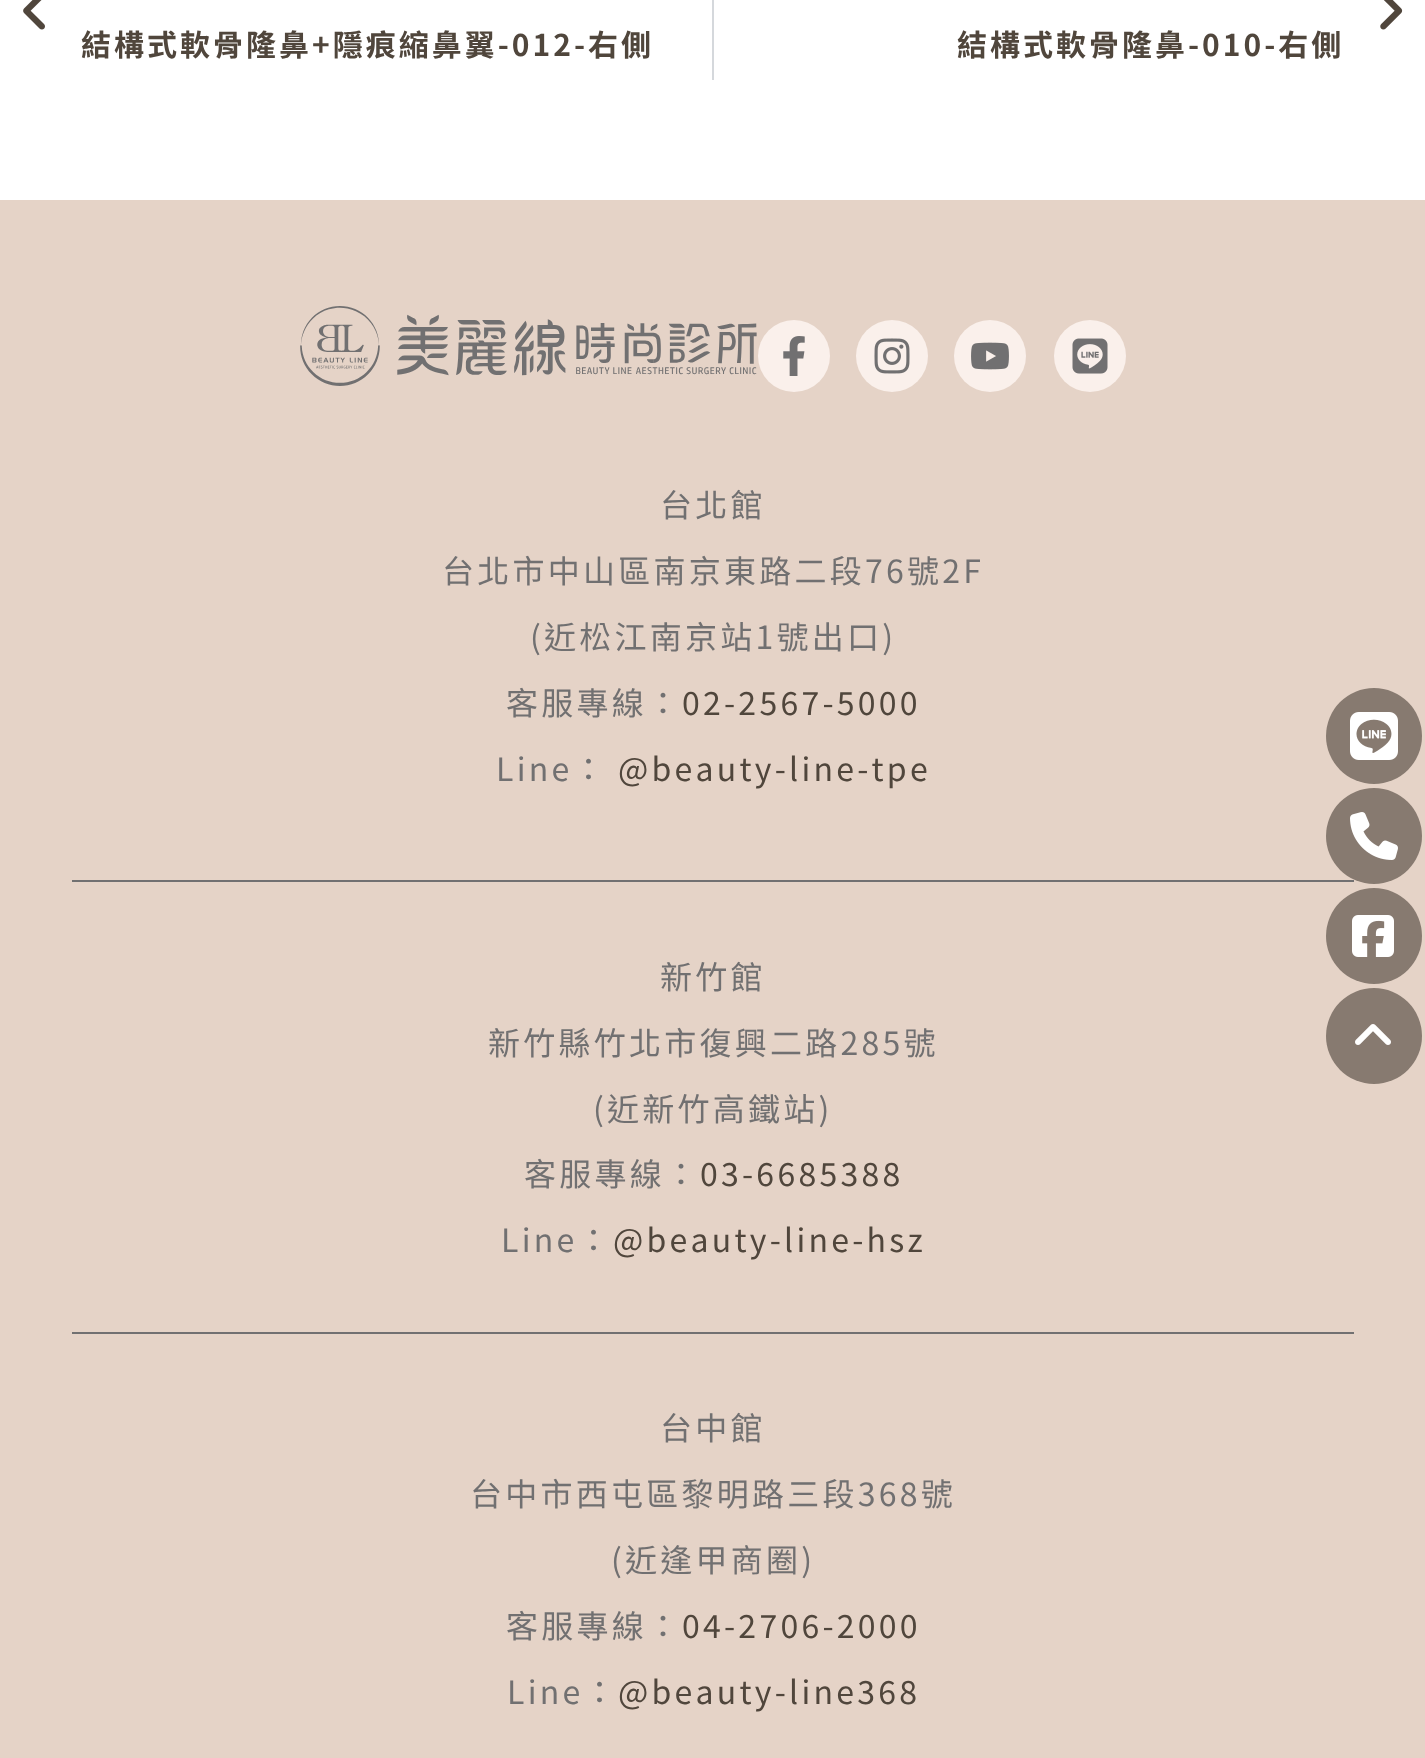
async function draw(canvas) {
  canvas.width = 1425;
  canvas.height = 1758;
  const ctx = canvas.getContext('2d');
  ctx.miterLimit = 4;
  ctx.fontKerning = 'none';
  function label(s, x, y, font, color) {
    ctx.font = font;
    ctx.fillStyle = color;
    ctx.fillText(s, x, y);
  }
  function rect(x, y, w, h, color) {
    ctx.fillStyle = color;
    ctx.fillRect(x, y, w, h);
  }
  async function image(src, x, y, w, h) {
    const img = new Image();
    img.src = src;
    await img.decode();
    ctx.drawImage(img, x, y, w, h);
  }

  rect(0, 0, 1425, 1758, '#fff');
  await image('assets/img1.png', 23, 0, 22, 30);
  ctx.letterSpacing = '3px';
  label('結構式軟骨隆鼻+隱痕縮鼻翼-012-右側', 81, 56, 'bold 30px Noto Sans TC', '#50463c');
  rect(712, 0, 2, 80, '#d5d8dc');
  await image('assets/img2.png', 1380, 0, 23, 30);
  label('結構式軟骨隆鼻-010-右側', 957, 56, 'bold 30px Noto Sans TC', '#50463c');
  rect(0, 200, 1425, 1558, '#e5d3c7');
  await image('assets/img3.png', 300, 306, 457, 80);
  ctx.fillStyle = '#faf0eb';
  ctx.beginPath();
  ctx.arc(794, 356, 36, 0, 2 * Math.PI);
  ctx.fill();
  await image('assets/img4.png', 783, 336, 22, 40);
  ctx.beginPath();
  ctx.arc(892, 356, 36, 0, 2 * Math.PI);
  ctx.fill();
  await image('assets/img5.png', 874, 338, 36, 36);
  ctx.beginPath();
  ctx.arc(990, 356, 36, 0, 2 * Math.PI);
  ctx.fill();
  await image('assets/img6.png', 971, 342, 38, 28);
  ctx.beginPath();
  ctx.arc(1090, 356, 36, 0, 2 * Math.PI);
  ctx.fill();
  await image('assets/img7.png', 1072, 338, 36, 36);
  ctx.letterSpacing = '3.25px';
  label('台北館', 660, 517, '32px Noto Sans TC', '#717071');
  label('台北市中山區南京東路二段76號2F', 442, 583, '32px Noto Sans TC', '#717071');
  label('(近松江南京站1號出口)', 530, 649, '32px Noto Sans TC', '#717071');
  label('客服專線：', 506, 715, '32px Noto Sans TC', '#717071');
  label('02-2567-5000', 682, 715, '32px Noto Sans TC', '#50463c');
  label('Line：', 496, 781, '32px Noto Sans TC', '#717071');
  label('@beauty-line-tpe', 618, 781, '32px Noto Sans TC', '#50463c');
  rect(72, 880, 1282, 2, '#717071');
  rect(72, 1332, 1282, 2, '#717071');
  label('新竹館', 660, 989, '32px Noto Sans TC', '#717071');
  label('新竹縣竹北市復興二路285號', 488, 1055, '32px Noto Sans TC', '#717071');
  label('(近新竹高鐵站)', 593, 1121, '32px Noto Sans TC', '#717071');
  label('客服專線：', 524, 1186, '32px Noto Sans TC', '#717071');
  label('03-6685388', 700, 1186, '32px Noto Sans TC', '#50463c');
  label('Line：', 501, 1252, '32px Noto Sans TC', '#717071');
  label('@beauty-line-hsz', 613, 1252, '32px Noto Sans TC', '#50463c');
  label('台中館', 660, 1440, '32px Noto Sans TC', '#717071');
  label('台中市西屯區黎明路三段368號', 470, 1506, '32px Noto Sans TC', '#717071');
  label('(近逢甲商圈)', 611, 1572, '32px Noto Sans TC', '#717071');
  label('客服專線：', 506, 1638, '32px Noto Sans TC', '#717071');
  label('04-2706-2000', 682, 1638, '32px Noto Sans TC', '#50463c');
  label('Line：', 507, 1704, '32px Noto Sans TC', '#717071');
  label('@beauty-line368', 618, 1704, '32px Noto Sans TC', '#50463c');
  ctx.fillStyle = '#877a70';
  ctx.beginPath();
  ctx.arc(1374, 736, 48, 0, 2 * Math.PI);
  ctx.fill();
  await image('assets/img8.png', 1350, 712, 48, 48);
  ctx.beginPath();
  ctx.arc(1374, 836, 48, 0, 2 * Math.PI);
  ctx.fill();
  await image('assets/img9.png', 1350, 812, 48, 48);
  ctx.beginPath();
  ctx.arc(1374, 936, 48, 0, 2 * Math.PI);
  ctx.fill();
  await image('assets/img10.png', 1352, 915, 42, 42);
  ctx.beginPath();
  ctx.arc(1374, 1036, 48, 0, 2 * Math.PI);
  ctx.fill();
  await image('assets/img11.png', 1355, 1024, 36, 21);
}

draw(document.querySelector('canvas'));
